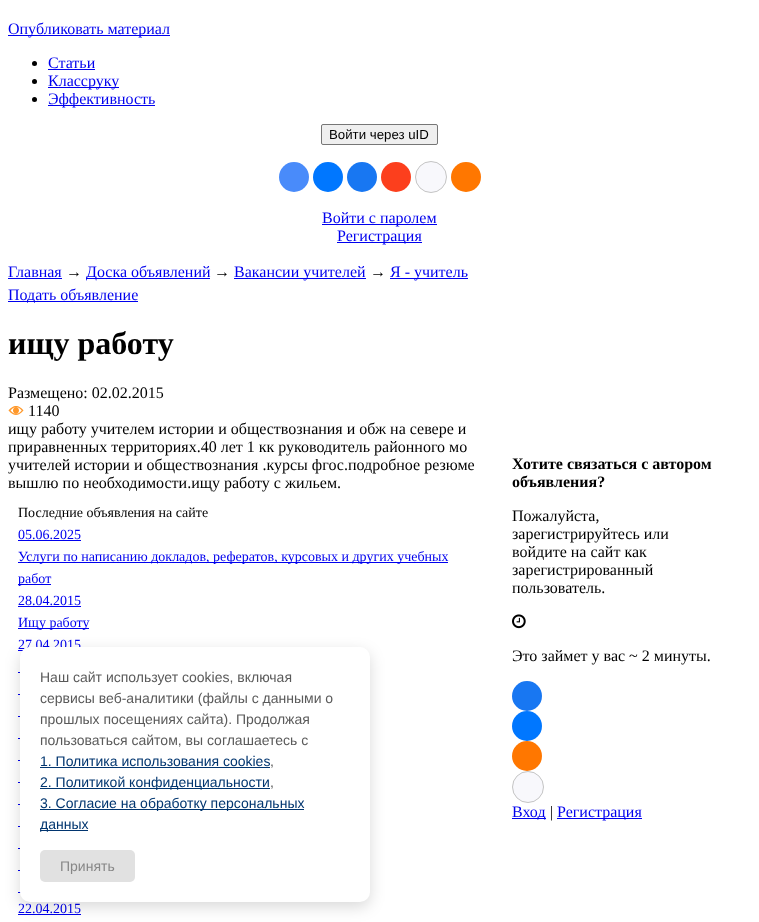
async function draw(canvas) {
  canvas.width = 759;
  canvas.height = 922;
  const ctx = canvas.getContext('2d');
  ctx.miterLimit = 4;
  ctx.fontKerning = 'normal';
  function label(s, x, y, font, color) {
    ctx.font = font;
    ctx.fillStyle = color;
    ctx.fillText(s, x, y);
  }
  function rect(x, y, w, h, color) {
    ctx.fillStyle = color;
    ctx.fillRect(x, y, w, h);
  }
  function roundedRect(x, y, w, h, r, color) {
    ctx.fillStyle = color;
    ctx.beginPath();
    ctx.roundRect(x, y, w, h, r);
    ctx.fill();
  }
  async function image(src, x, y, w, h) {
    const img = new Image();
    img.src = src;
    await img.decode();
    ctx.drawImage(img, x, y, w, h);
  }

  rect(0, 0, 759, 922, '#fff');
  rect(8, 35, 162, 1, '#00e');
  label('Опубликовать материал', 8, 34, '16px Liberation Serif', '#00e');
  ctx.fillStyle = '#000';
  ctx.beginPath();
  ctx.arc(34.5, 63.5, 2.5, 0, 2 * Math.PI);
  ctx.fill();
  label('Статьи', 48, 68, '16px Liberation Serif', '#00e');
  rect(48, 69, 47, 1, '#00e');
  ctx.fillStyle = '#000';
  ctx.beginPath();
  ctx.arc(34.5, 81.5, 2.5, 0, 2 * Math.PI);
  ctx.fill();
  rect(48, 87, 71, 1, '#00e');
  label('Классруку', 48, 86, '16px Liberation Serif', '#00e');
  ctx.fillStyle = '#000';
  ctx.beginPath();
  ctx.arc(34.5, 99.5, 2.5, 0, 2 * Math.PI);
  ctx.fill();
  rect(48, 105, 107, 1, '#00e');
  label('Эффективность', 48, 104, '16px Liberation Serif', '#00e');
  ctx.fillStyle = '#efefef';
  ctx.beginPath();
  ctx.roundRect(321.5, 124.5, 116, 20, 1.5);
  ctx.fill();
  ctx.strokeStyle = '#767676';
  ctx.stroke();
  label('Войти через uID', 329, 139, '13.25px Liberation Sans', '#000');
  ctx.fillStyle = '#498bfa';
  ctx.beginPath();
  ctx.arc(294, 177, 15, 0, 2 * Math.PI);
  ctx.fill();
  ctx.fillStyle = '#07f';
  ctx.beginPath();
  ctx.arc(328, 177, 15, 0, 2 * Math.PI);
  ctx.fill();
  ctx.fillStyle = '#1877f2';
  ctx.beginPath();
  ctx.arc(362, 177, 15, 0, 2 * Math.PI);
  ctx.fill();
  ctx.fillStyle = '#fc3f1d';
  ctx.beginPath();
  ctx.arc(396, 177, 15, 0, 2 * Math.PI);
  ctx.fill();
  ctx.fillStyle = '#f8f8fc';
  ctx.beginPath();
  ctx.arc(431, 177, 15.5, 0, 2 * Math.PI);
  ctx.fill();
  ctx.strokeStyle = '#c4c4c4';
  ctx.stroke();
  ctx.fillStyle = '#f70';
  ctx.beginPath();
  ctx.arc(466, 177, 15, 0, 2 * Math.PI);
  ctx.fill();
  rect(322, 224, 115, 1, '#00e');
  label('Войти с паролем', 322, 223, '16px Liberation Serif', '#00e');
  rect(337, 242, 85, 1, '#00e');
  label('Регистрация', 337, 241, '16px Liberation Serif', '#00e');
  label('Главная', 8, 277, '16px Liberation Serif', '#00e');
  rect(8, 278, 54, 1, '#00e');
  label('→', 66, 277, '16px Liberation Serif', '#000');
  rect(86, 278, 124, 1, '#00e');
  label('Доска объявлений', 86, 277, '16px Liberation Serif', '#00e');
  label('→', 214, 277, '16px Liberation Serif', '#000');
  rect(234, 278, 132, 1, '#00e');
  label('Вакансии учителей', 234, 277, '16px Liberation Serif', '#00e');
  label('→', 370, 277, '16px Liberation Serif', '#000');
  rect(390, 278, 78, 1, '#00e');
  label('Я - учитель', 390, 277, '16px Liberation Serif', '#00e');
  rect(8, 301, 130, 1, '#00e');
  label('Подать объявление', 8, 300, '16px Liberation Serif', '#00e');
  label('ищу работу', 8, 354, 'bold 32px Liberation Serif', '#000');
  label('Размещено: 02.02.2015', 8, 398, '16px Liberation Serif', '#000');
  await image('assets/img1.png', 8, 406, 16, 9);
  label('1140', 28, 416, '16px Liberation Serif', '#000');
  label('ищу работу учителем истории и обществознания и обж на севере и', 8, 434, '16px Liberation Serif', '#000');
  label('приравненных территориях.40 лет 1 кк руководитель районного мо', 8, 452, '16px Liberation Serif', '#000');
  label('учителей истории и обществознания .курсы фгос.подробное резюме', 8, 470, '16px Liberation Serif', '#000');
  label('вышлю по необходимости.ищу работу с жильем.', 8, 488, '16px Liberation Serif', '#000');
  label('Хотите связаться с автором', 512, 469, 'bold 16px Liberation Serif', '#000');
  label('объявления?', 512, 487, 'bold 16px Liberation Serif', '#000');
  label('Пожалуйста,', 512, 521, '16px Liberation Serif', '#000');
  label('зарегистрируйтесь или', 512, 539, '16px Liberation Serif', '#000');
  label('войдите на сайт как', 512, 557, '16px Liberation Serif', '#000');
  label('зарегистрированный', 512, 575, '16px Liberation Serif', '#000');
  label('пользователь.', 512, 593, '16px Liberation Serif', '#000');
  await image('assets/img2.png', 512, 614, 14, 15);
  label('Это займет у вас ~ 2 минуты.', 512, 661, '16px Liberation Serif', '#000');
  ctx.fillStyle = '#1877f2';
  ctx.beginPath();
  ctx.arc(527, 696, 15, 0, 2 * Math.PI);
  ctx.fill();
  ctx.fillStyle = '#07f';
  ctx.beginPath();
  ctx.arc(527, 726, 15, 0, 2 * Math.PI);
  ctx.fill();
  ctx.fillStyle = '#f70';
  ctx.beginPath();
  ctx.arc(527, 756, 15, 0, 2 * Math.PI);
  ctx.fill();
  ctx.fillStyle = '#f8f8fc';
  ctx.beginPath();
  ctx.arc(528, 787, 15.5, 0, 2 * Math.PI);
  ctx.fill();
  ctx.stroke();
  rect(512, 818, 34, 1, '#00e');
  label('Вход', 512, 817, '16px Liberation Serif', '#00e');
  label('|', 550, 817, '16px Liberation Serif', '#000');
  rect(557, 818, 85, 1, '#00e');
  label('Регистрация', 557, 817, '16px Liberation Serif', '#00e');
  label('Последние объявления на сайте', 18, 517, '14px Liberation Serif', '#000');
  label('05.06.2025', 18, 539, '14px Liberation Serif', '#00e');
  rect(18, 540, 63, 1, '#00e');
  rect(18, 562, 430, 1, '#00e');
  label('Услуги по написанию докладов, рефератов, курсовых и других учебных', 18, 561, '14px Liberation Serif', '#00e');
  rect(18, 584, 33, 1, '#00e');
  label('работ', 18, 583, '14px Liberation Serif', '#00e');
  label('28.04.2015', 18, 605, '14px Liberation Serif', '#00e');
  rect(18, 606, 63, 1, '#00e');
  rect(18, 628, 71, 1, '#00e');
  label('Ищу работу', 18, 627, '14px Liberation Serif', '#00e');
  label('27.04.2015', 18, 649, '14px Liberation Serif', '#00e');
  rect(18, 650, 5, 1, '#00e');
  rect(18, 672, 2, 1, '#00e');
  rect(18, 694, 2, 1, '#00e');
  rect(18, 716, 2, 1, '#00e');
  rect(18, 738, 2, 1, '#00e');
  rect(18, 760, 2, 1, '#00e');
  rect(18, 782, 2, 1, '#00e');
  rect(18, 804, 2, 1, '#00e');
  rect(18, 826, 2, 1, '#00e');
  rect(18, 848, 2, 1, '#00e');
  rect(18, 870, 2, 1, '#00e');
  rect(18, 892, 3, 1, '#00e');
  label('22.04.2015', 18, 913, '14px Liberation Serif', '#00e');
  rect(18, 914, 63, 1, '#00e');
  ctx.fillStyle = '#00000026';
  ctx.filter = 'blur(7.5px)';
  ctx.beginPath();
  ctx.roundRect(20, 652, 350, 255, 10);
  ctx.fill();
  ctx.filter = 'none';
  roundedRect(20, 647, 350, 255, 10, '#fff');
  label('Наш сайт использует cookies, включая', 40, 682, '14px Liberation Sans', '#5a5a5a');
  label('сервисы веб-аналитики (файлы с данными о', 40, 703, '14px Liberation Sans', '#5a5a5a');
  label('прошлых посещениях сайта). Продолжая', 40, 724, '14px Liberation Sans', '#5a5a5a');
  label('пользоваться сайтом, вы соглашаетесь с', 40, 745, '14px Liberation Sans', '#5a5a5a');
  label('1. Политика использования cookies', 40, 766, '14px Liberation Sans', '#01356f');
  rect(40, 767, 230, 1, '#01356f');
  label(',', 270, 766, '14px Liberation Sans', '#5a5a5a');
  rect(40, 788, 230, 1, '#01356f');
  label('2. Политикой конфиденциальности', 40, 787, '14px Liberation Sans', '#01356f');
  label(',', 270, 787, '14px Liberation Sans', '#5a5a5a');
  rect(40, 809, 264, 1, '#01356f');
  label('3. Согласие на обработку персональных', 40, 808, '14px Liberation Sans', '#01356f');
  rect(40, 830, 48, 1, '#01356f');
  label('данных', 40, 829, '14px Liberation Sans', '#01356f');
  roundedRect(40, 850, 95, 32, 5, '#e1e1e1');
  label('Принять', 60, 871, '14px Liberation Sans', '#878787');
}

draw(document.querySelector('canvas'));
